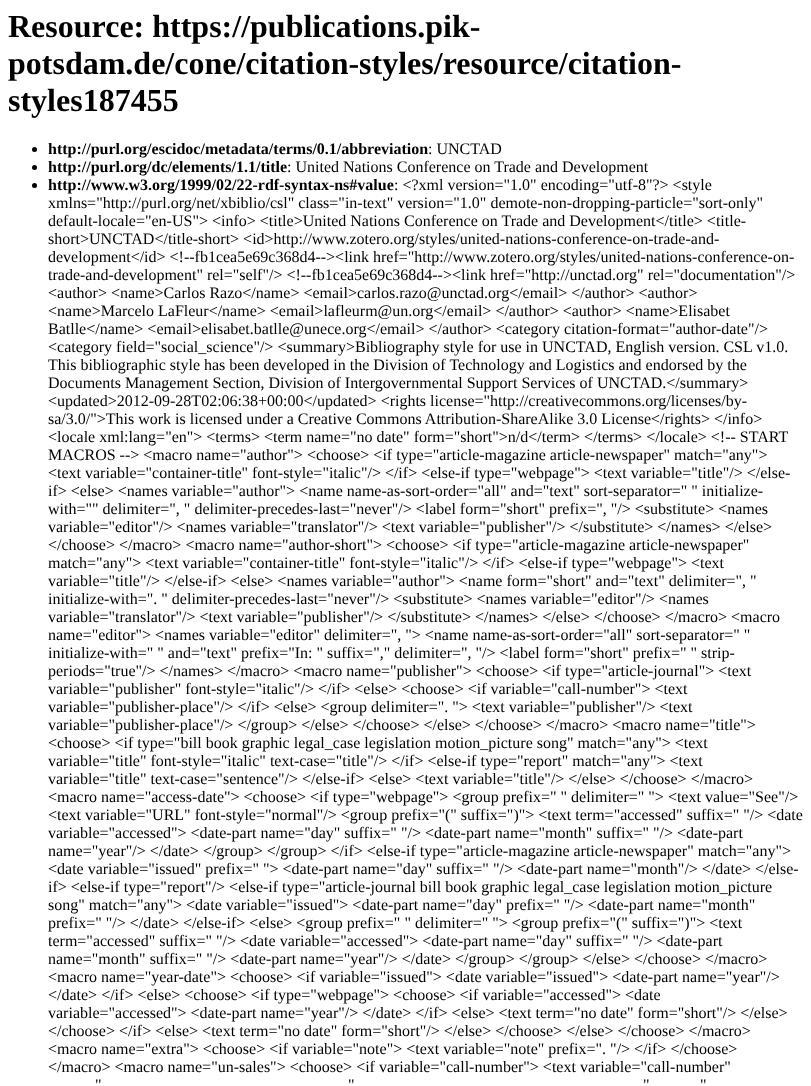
async function draw(canvas) {
  canvas.width = 811;
  canvas.height = 1086;
  const ctx = canvas.getContext('2d');
  ctx.miterLimit = 4;
  ctx.fontKerning = 'normal';
  function label(s, x, y, font, color) {
    ctx.font = font;
    ctx.fillStyle = color;
    ctx.fillText(s, x, y);
  }
  function rect(x, y, w, h, color) {
    ctx.fillStyle = color;
    ctx.fillRect(x, y, w, h);
  }

  rect(0, 0, 811, 1086, '#fff');
  label('Resource: https://publications.pik-', 8, 37, 'bold 32px Liberation Serif', '#000');
  label('potsdam.de/cone/citation-styles/resource/citation-', 8, 74, 'bold 32px Liberation Serif', '#000');
  label('styles187455', 8, 111, 'bold 32px Liberation Serif', '#000');
  ctx.beginPath();
  ctx.arc(34.5, 149.5, 2.5, 0, 2 * Math.PI);
  ctx.fill();
  label('http://purl.org/escidoc/metadata/terms/0.1/abbreviation', 48, 154, 'bold 16px Liberation Serif', '#000');
  label(': UNCTAD', 428, 154, '16px Liberation Serif', '#000');
  ctx.beginPath();
  ctx.arc(34.5, 167.5, 2.5, 0, 2 * Math.PI);
  ctx.fill();
  label('http://purl.org/dc/elements/1.1/title', 48, 172, 'bold 16px Liberation Serif', '#000');
  label(': United Nations Conference on Trade and Development', 287, 172, '16px Liberation Serif', '#000');
  ctx.beginPath();
  ctx.arc(34.5, 185.5, 2.5, 0, 2 * Math.PI);
  ctx.fill();
  label('http://www.w3.org/1999/02/22-rdf-syntax-ns#value', 48, 190, 'bold 16px Liberation Serif', '#000');
  label(': <?xml version="1.0" encoding="utf-8"?> <style', 394, 190, '16px Liberation Serif', '#000');
  label('xmlns="http://purl.org/net/xbiblio/csl" class="in-text" version="1.0" demote-non-dropping-particle="sort-only"', 48, 208, '16px Liberation Serif', '#000');
  label('default-locale="en-US"> <info> <title>United Nations Conference on Trade and Development<\/title> <title-', 48, 226, '16px Liberation Serif', '#000');
  label('short>UNCTAD<\/title-short> <id>http://www.zotero.org/styles/united-nations-conference-on-trade-and-', 48, 244, '16px Liberation Serif', '#000');
  label('development<\/id> <\!--fb1cea5e69c368d4--><link href="http://www.zotero.org/styles/united-nations-conference-on-', 48, 262, '16px Liberation Serif', '#000');
  label('trade-and-development" rel="self"/> <\!--fb1cea5e69c368d4--><link href="http://unctad.org" rel="documentation"/>', 48, 280, '16px Liberation Serif', '#000');
  label('<author> <name>Carlos Razo<\/name> <email>carlos.razo@unctad.org<\/email> <\/author> <author>', 48, 298, '16px Liberation Serif', '#000');
  label('<name>Marcelo LaFleur<\/name> <email>lafleurm@un.org<\/email> <\/author> <author> <name>Elisabet', 48, 316, '16px Liberation Serif', '#000');
  label('Batlle<\/name> <email>elisabet.batlle@unece.org<\/email> <\/author> <category citation-format="author-date"/>', 48, 334, '16px Liberation Serif', '#000');
  label('<category field="social_science"/> <summary>Bibliography style for use in UNCTAD, English version. CSL v1.0.', 48, 352, '16px Liberation Serif', '#000');
  label('This bibliographic style has been developed in the Division of Technology and Logistics and endorsed by the', 48, 370, '16px Liberation Serif', '#000');
  label('Documents Management Section, Division of Intergovernmental Support Services of UNCTAD.<\/summary>', 48, 388, '16px Liberation Serif', '#000');
  label('<updated>2012-09-28T02:06:38+00:00<\/updated> <rights license="http://creativecommons.org/licenses/by-', 48, 406, '16px Liberation Serif', '#000');
  label('sa/3.0/">This work is licensed under a Creative Commons Attribution-ShareAlike 3.0 License<\/rights> <\/info>', 48, 424, '16px Liberation Serif', '#000');
  label('<locale xml:lang="en"> <terms> <term name="no date" form="short">n/d<\/term> <\/terms> <\/locale> <\!-- START', 48, 442, '16px Liberation Serif', '#000');
  label('MACROS --> <macro name="author"> <choose> <if type="article-magazine article-newspaper" match="any">', 48, 460, '16px Liberation Serif', '#000');
  label('<text variable="container-title" font-style="italic"/> <\/if> <else-if type="webpage"> <text variable="title"/> <\/else-', 48, 478, '16px Liberation Serif', '#000');
  label('if> <else> <names variable="author"> <name name-as-sort-order="all" and="text" sort-separator=" " initialize-', 48, 496, '16px Liberation Serif', '#000');
  label('with="" delimiter=", " delimiter-precedes-last="never"/> <label form="short" prefix=", "/> <substitute> <names', 48, 514, '16px Liberation Serif', '#000');
  label('variable="editor"/> <names variable="translator"/> <text variable="publisher"/> <\/substitute> <\/names> <\/else>', 48, 532, '16px Liberation Serif', '#000');
  label('<\/choose> <\/macro> <macro name="author-short"> <choose> <if type="article-magazine article-newspaper"', 48, 550, '16px Liberation Serif', '#000');
  label('match="any"> <text variable="container-title" font-style="italic"/> <\/if> <else-if type="webpage"> <text', 48, 568, '16px Liberation Serif', '#000');
  label('variable="title"/> <\/else-if> <else> <names variable="author"> <name form="short" and="text" delimiter=", "', 48, 586, '16px Liberation Serif', '#000');
  label('initialize-with=". " delimiter-precedes-last="never"/> <substitute> <names variable="editor"/> <names', 48, 604, '16px Liberation Serif', '#000');
  label('variable="translator"/> <text variable="publisher"/> <\/substitute> <\/names> <\/else> <\/choose> <\/macro> <macro', 48, 622, '16px Liberation Serif', '#000');
  label('name="editor"> <names variable="editor" delimiter=", "> <name name-as-sort-order="all" sort-separator=" "', 48, 640, '16px Liberation Serif', '#000');
  label('initialize-with=" " and="text" prefix="In: " suffix="," delimiter=", "/> <label form="short" prefix=" " strip-', 48, 658, '16px Liberation Serif', '#000');
  label('periods="true"/> <\/names> <\/macro> <macro name="publisher"> <choose> <if type="article-journal"> <text', 48, 676, '16px Liberation Serif', '#000');
  label('variable="publisher" font-style="italic"/> <\/if> <else> <choose> <if variable="call-number"> <text', 48, 694, '16px Liberation Serif', '#000');
  label('variable="publisher-place"/> <\/if> <else> <group delimiter=". "> <text variable="publisher"/> <text', 48, 712, '16px Liberation Serif', '#000');
  label('variable="publisher-place"/> <\/group> <\/else> <\/choose> <\/else> <\/choose> <\/macro> <macro name="title">', 48, 730, '16px Liberation Serif', '#000');
  label('<choose> <if type="bill book graphic legal_case legislation motion_picture song" match="any"> <text', 48, 748, '16px Liberation Serif', '#000');
  label('variable="title" font-style="italic" text-case="title"/> <\/if> <else-if type="report" match="any"> <text', 48, 766, '16px Liberation Serif', '#000');
  label('variable="title" text-case="sentence"/> <\/else-if> <else> <text variable="title"/> <\/else> <\/choose> <\/macro>', 48, 784, '16px Liberation Serif', '#000');
  label('<macro name="access-date"> <choose> <if type="webpage"> <group prefix=" " delimiter=" "> <text value="See"/>', 48, 802, '16px Liberation Serif', '#000');
  label('<text variable="URL" font-style="normal"/> <group prefix="(" suffix=")"> <text term="accessed" suffix=" "/> <date', 48, 820, '16px Liberation Serif', '#000');
  label('variable="accessed"> <date-part name="day" suffix=" "/> <date-part name="month" suffix=" "/> <date-part', 48, 838, '16px Liberation Serif', '#000');
  label('name="year"/> <\/date> <\/group> <\/group> <\/if> <else-if type="article-magazine article-newspaper" match="any">', 48, 856, '16px Liberation Serif', '#000');
  label('<date variable="issued" prefix=" "> <date-part name="day" suffix=" "/> <date-part name="month"/> <\/date> <\/else-', 48, 874, '16px Liberation Serif', '#000');
  label('if> <else-if type="report"/> <else-if type="article-journal bill book graphic legal_case legislation motion_picture', 48, 892, '16px Liberation Serif', '#000');
  label('song" match="any"> <date variable="issued"> <date-part name="day" prefix=" "/> <date-part name="month"', 48, 910, '16px Liberation Serif', '#000');
  label('prefix=" "/> <\/date> <\/else-if> <else> <group prefix=" " delimiter=" "> <group prefix="(" suffix=")"> <text', 48, 928, '16px Liberation Serif', '#000');
  label('term="accessed" suffix=" "/> <date variable="accessed"> <date-part name="day" suffix=" "/> <date-part', 48, 946, '16px Liberation Serif', '#000');
  label('name="month" suffix=" "/> <date-part name="year"/> <\/date> <\/group> <\/group> <\/else> <\/choose> <\/macro>', 48, 964, '16px Liberation Serif', '#000');
  label('<macro name="year-date"> <choose> <if variable="issued"> <date variable="issued"> <date-part name="year"/>', 48, 982, '16px Liberation Serif', '#000');
  label('<\/date> <\/if> <else> <choose> <if type="webpage"> <choose> <if variable="accessed"> <date', 48, 1000, '16px Liberation Serif', '#000');
  label('variable="accessed"> <date-part name="year"/> <\/date> <\/if> <else> <text term="no date" form="short"/> <\/else>', 48, 1018, '16px Liberation Serif', '#000');
  label('<\/choose> <\/if> <else> <text term="no date" form="short"/> <\/else> <\/choose> <\/else> <\/choose> <\/macro>', 48, 1036, '16px Liberation Serif', '#000');
  label('<macro name="extra"> <choose> <if variable="note"> <text variable="note" prefix=". "/> <\/if> <\/choose>', 48, 1054, '16px Liberation Serif', '#000');
  label('<\/macro> <macro name="un-sales"> <choose> <if variable="call-number"> <text variable="call-number"', 48, 1072, '16px Liberation Serif', '#000');
  label('"', 95, 1090, '16px Liberation Serif', '#000');
  label('"', 348, 1090, '16px Liberation Serif', '#000');
  label('"', 643, 1090, '16px Liberation Serif', '#000');
  label('"', 700, 1090, '16px Liberation Serif', '#000');
}

draw(document.querySelector('canvas'));
